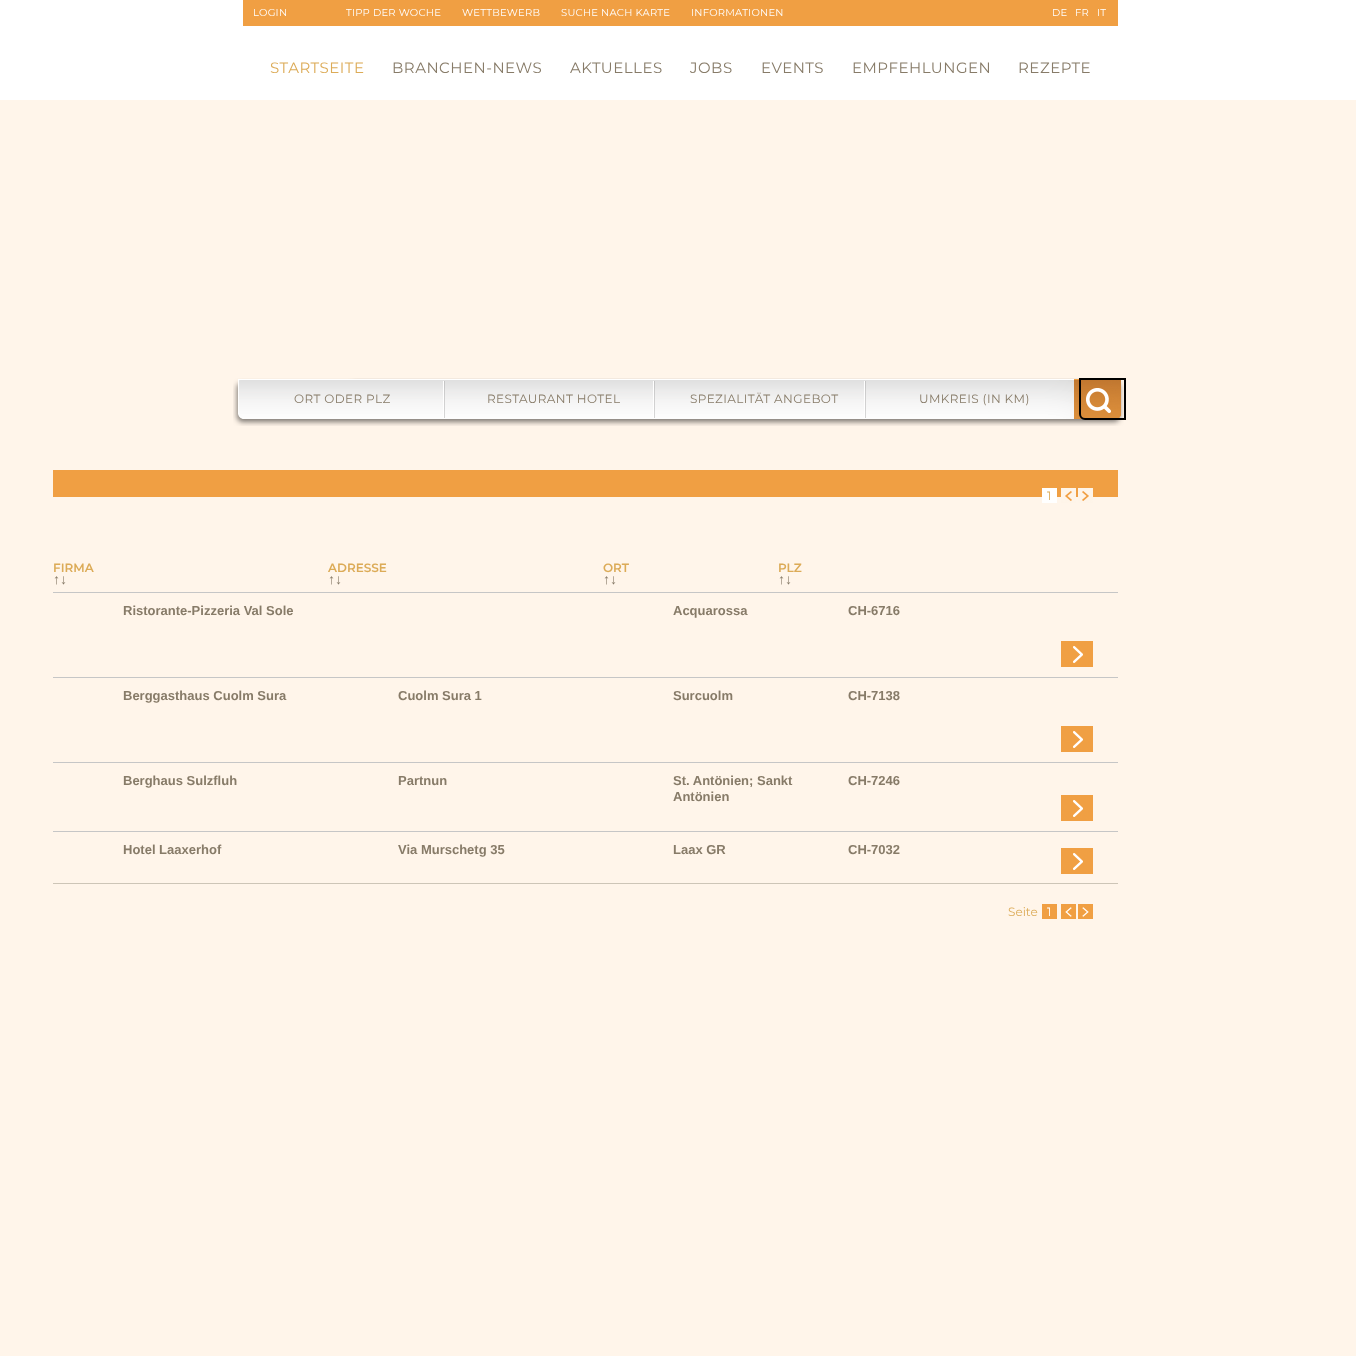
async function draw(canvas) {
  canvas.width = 1356;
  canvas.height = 1356;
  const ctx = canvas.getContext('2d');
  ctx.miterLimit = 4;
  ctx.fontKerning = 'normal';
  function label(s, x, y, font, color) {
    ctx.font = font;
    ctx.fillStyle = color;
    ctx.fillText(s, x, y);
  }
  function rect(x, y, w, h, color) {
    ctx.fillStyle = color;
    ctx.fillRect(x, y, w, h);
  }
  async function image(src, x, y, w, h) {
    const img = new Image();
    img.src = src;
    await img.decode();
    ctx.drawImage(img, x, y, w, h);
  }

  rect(0, 0, 1356, 1356, '#fff5ea');
  rect(0, 0, 1356, 100, '#fff');
  rect(243, 0, 875, 26, '#f09f43');
  ctx.letterSpacing = '0.25px';
  label('LOGIN', 253, 16, '10px Montserrat', '#fff');
  label('TIPP DER WOCHE', 346, 16, '10px Montserrat', '#fff');
  label('WETTBEWERB', 462, 16, '10px Montserrat', '#fff');
  label('SUCHE NACH KARTE', 561, 16, '10px Montserrat', '#fff');
  label('INFORMATIONEN', 691, 16, '10px Montserrat', '#fff');
  label('DE', 1052, 16, '10px Montserrat', '#fff');
  label('FR', 1075, 16, '10px Montserrat', '#fff');
  label('IT', 1097, 16, '10px Montserrat', '#fff');
  ctx.letterSpacing = '0.5px';
  label('STARTSEITE', 270, 73, '15px Montserrat', '#dcab57');
  label('BRANCHEN-NEWS', 392, 73, '15px Montserrat', '#877b68');
  label('AKTUELLES', 570, 73, '15px Montserrat', '#877b68');
  label('JOBS', 690, 73, '15px Montserrat', '#877b68');
  label('EVENTS', 761, 73, '15px Montserrat', '#877b68');
  label('EMPFEHLUNGEN', 852, 73, '15px Montserrat', '#877b68');
  label('REZEPTE', 1018, 73, '15px Montserrat', '#877b68');
  await image('assets/img1.png', 233, 378, 891, 48);
  ctx.letterSpacing = '0.4px';
  label('ORT ODER PLZ', 294, 403, '12px Montserrat', '#877b68');
  label('RESTAURANT HOTEL', 487, 403, '12px Montserrat', '#877b68');
  label('SPEZIALITÄT ANGEBOT', 690, 403, '12px Montserrat', '#877b68');
  label('UMKREIS (IN KM)', 919, 403, '12px Montserrat', '#877b68');
  ctx.beginPath();
  ctx.roundRect(1080, 379, 45, 40, [0, 0, 0, 5]);
  ctx.strokeStyle = '#000';
  ctx.lineWidth = 2;
  ctx.stroke();
  rect(53, 470, 1065, 27, '#f09f43');
  rect(1042, 488, 15, 15, '#fff');
  ctx.letterSpacing = '0px';
  label('1', 1047, 500, '12px Montserrat', '#dcab57');
  await image('assets/img2.png', 1061, 488, 15, 15);
  await image('assets/img3.png', 1078, 488, 15, 15);
  label('FIRMA', 53, 572, '600 12px Montserrat', '#dcab57');
  label('↑↓', 53, 584, 'bold 14px Liberation Sans', '#877b68');
  label('ADRESSE', 328, 572, '600 12px Montserrat', '#dcab57');
  label('↑↓', 328, 584, 'bold 14px Liberation Sans', '#877b68');
  label('ORT', 603, 572, '600 12px Montserrat', '#dcab57');
  label('↑↓', 603, 584, 'bold 14px Liberation Sans', '#877b68');
  label('PLZ', 778, 572, '600 12px Montserrat', '#dcab57');
  label('↑↓', 778, 584, 'bold 14px Liberation Sans', '#877b68');
  rect(53, 592, 1065, 1, '#c6c6c6');
  label('Ristorante-Pizzeria Val Sole', 123, 615, 'bold 13px Liberation Sans', '#877b68');
  label('Acquarossa', 673, 615, 'bold 13px Liberation Sans', '#877b68');
  label('CH-6716', 848, 615, 'bold 13px Liberation Sans', '#877b68');
  await image('assets/img4.png', 1061, 641, 32, 26);
  rect(53, 677, 1065, 1, '#c6c6c6');
  label('Berggasthaus Cuolm Sura', 123, 700, 'bold 13px Liberation Sans', '#877b68');
  label('Cuolm Sura 1', 398, 700, 'bold 13px Liberation Sans', '#877b68');
  label('Surcuolm', 673, 700, 'bold 13px Liberation Sans', '#877b68');
  label('CH-7138', 848, 700, 'bold 13px Liberation Sans', '#877b68');
  await image('assets/img4.png', 1061, 726, 32, 26);
  rect(53, 762, 1065, 1, '#c6c6c6');
  label('Berghaus Sulzfluh', 123, 785, 'bold 13px Liberation Sans', '#877b68');
  label('Partnun', 398, 785, 'bold 13px Liberation Sans', '#877b68');
  label('St. Antönien; Sankt', 673, 785, 'bold 13px Liberation Sans', '#877b68');
  label('Antönien', 673, 801, 'bold 13px Liberation Sans', '#877b68');
  label('CH-7246', 848, 785, 'bold 13px Liberation Sans', '#877b68');
  await image('assets/img4.png', 1061, 795, 32, 26);
  rect(53, 831, 1065, 1, '#c6c6c6');
  label('Hotel Laaxerhof', 123, 854, 'bold 13px Liberation Sans', '#877b68');
  label('Via Murschetg 35', 398, 854, 'bold 13px Liberation Sans', '#877b68');
  label('Laax GR', 673, 854, 'bold 13px Liberation Sans', '#877b68');
  label('CH-7032', 848, 854, 'bold 13px Liberation Sans', '#877b68');
  await image('assets/img4.png', 1061, 848, 32, 26);
  rect(53, 883, 1065, 1, '#cdc5b7');
  label('Seite', 1008, 916, '12px Montserrat', '#dcab57');
  rect(1042, 904, 15, 15, '#f09f43');
  label('1', 1047, 916, '12px Montserrat', '#fff');
  await image('assets/img5.png', 1061, 904, 15, 15);
  await image('assets/img6.png', 1078, 904, 15, 15);
}

draw(document.querySelector('canvas'));
